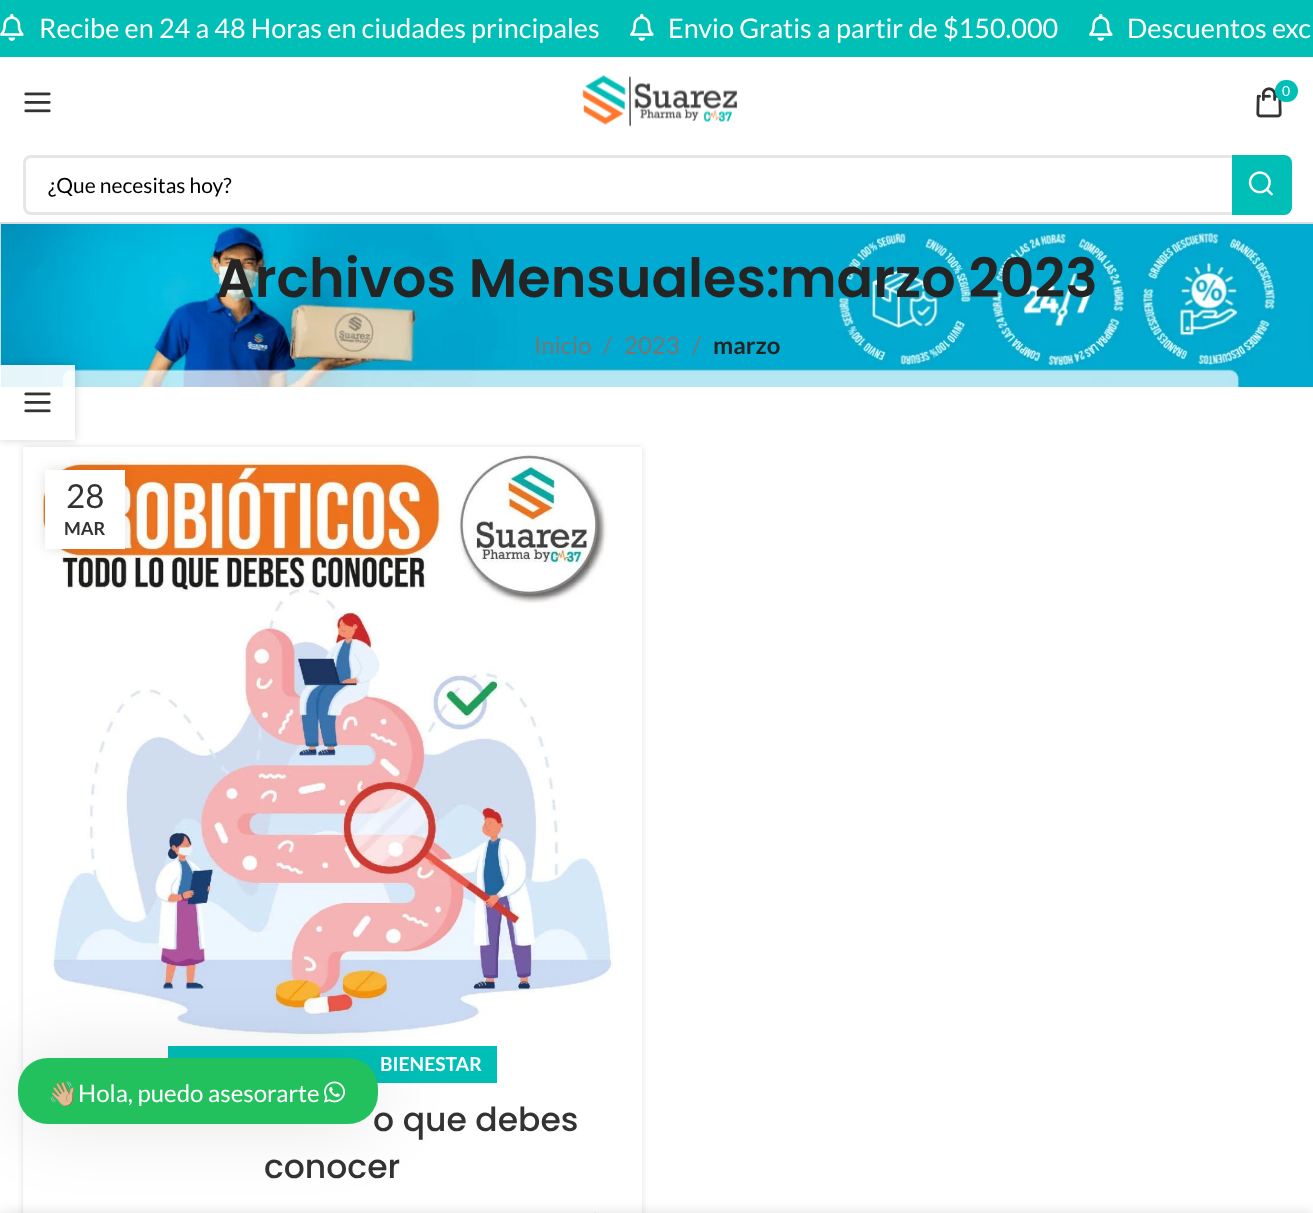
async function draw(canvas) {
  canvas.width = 1313;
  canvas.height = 1213;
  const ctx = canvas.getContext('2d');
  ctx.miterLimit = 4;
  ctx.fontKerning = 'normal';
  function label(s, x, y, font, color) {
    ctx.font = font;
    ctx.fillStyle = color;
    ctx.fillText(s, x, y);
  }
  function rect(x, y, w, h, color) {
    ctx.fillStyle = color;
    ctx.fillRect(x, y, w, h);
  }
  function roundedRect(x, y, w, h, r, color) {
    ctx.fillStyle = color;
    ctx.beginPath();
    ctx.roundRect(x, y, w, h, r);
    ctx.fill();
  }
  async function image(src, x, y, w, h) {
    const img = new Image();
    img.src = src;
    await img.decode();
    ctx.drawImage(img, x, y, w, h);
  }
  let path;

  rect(0, 0, 1313, 1213, '#fff');
  rect(0, 0, 1313, 57, '#00bfb7');
  await image('assets/img1.png', 0, 13, 24, 28);
  label('Recibe en 24 a 48 Horas en ciudades principales', 39, 38, '27px Lato', '#fff');
  await image('assets/img1.png', 630, 13, 24, 28);
  label('Envio Gratis a partir de $150.000', 668, 38, '27px Lato', '#fff');
  await image('assets/img1.png', 1089, 13, 24, 28);
  label('Descuentos exc', 1127, 38, '27px Lato', '#fff');
  await image('assets/img2.png', 24, 92, 27, 21);
  await image('assets/img3.png', 582, 75, 156, 52);
  await image('assets/img4.png', 1256, 87, 26, 31);
  roundedRect(1275, 80, 23, 22, 11, '#00bfb7');
  label('0', 1282, 96, '14px Lato', '#fff');
  rect(0, 222, 1313, 2, '#dcdcdc');
  ctx.beginPath();
  ctx.roundRect(24.5, 156.5, 1266, 57, 6.5);
  ctx.strokeStyle = '#e6e6e6';
  ctx.lineWidth = 3;
  ctx.stroke();
  label('¿Que necesitas hoy?', 48, 193, '21px Lato', '#000');
  ctx.fillStyle = '#00bfb7';
  ctx.beginPath();
  ctx.roundRect(1232, 155, 60, 60, [0, 8, 8, 0]);
  ctx.fill();
  await image('assets/img5.png', 1248, 171, 25, 25);
  await image('assets/img6.png', 0, 224, 1313, 163);
  label('Archivos Mensuales:marzo 2023', 216, 297, '600 54px Poppins', '#242424');
  label('Inicio', 534, 354, '24px Lato', '#767676');
  label('/', 603, 354, '24px Lato', '#767676');
  label('2023', 624, 354, '24px Lato', '#767676');
  label('/', 692, 354, '24px Lato', '#767676');
  label('marzo', 713, 354, 'bold 24px Lato', '#242424');
  ctx.save();
  path = new Path2D('M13 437H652V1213H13ZM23 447H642V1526H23Z');
  ctx.clip(path, 'evenodd');
  ctx.fillStyle = '#0000001f';
  ctx.filter = 'blur(3px)';
  ctx.beginPath();
  ctx.rect(23, 447, 619, 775);
  ctx.fill();
  ctx.filter = 'none';
  ctx.restore();
  await image('assets/img7.png', 41, 452, 572, 585);
  ctx.fillStyle = '#0000001a';
  ctx.filter = 'blur(7px)';
  ctx.beginPath();
  ctx.rect(45, 470, 80, 79);
  ctx.fill();
  ctx.filter = 'none';
  rect(45, 470, 80, 79, '#fff');
  label('28', 66, 508, '33px Lato', '#333');
  label('MAR', 64, 535, 'bold 18px Lato', '#333');
  rect(168, 1046, 329, 37, '#00bfb7');
  label('BIENESTAR', 380, 1071, 'bold 19.25px Lato', '#fff');
  label('o que debes', 373, 1131, '500 33px Poppins', '#333');
  label('conocer', 264, 1178, '500 33px Poppins', '#333');
  await image('assets/img8.png', 594, 1212, 2, 1);
  ctx.save();
  path = new Path2D('M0 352H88V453H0ZM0 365H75V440H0Z');
  ctx.clip(path, 'evenodd');
  ctx.fillStyle = '#0000002b';
  ctx.filter = 'blur(4px)';
  ctx.beginPath();
  ctx.rect(0, 365, 75, 75);
  ctx.fill();
  ctx.filter = 'none';
  ctx.restore();
  rect(0, 365, 75, 75, '#ffffffe6');
  await image('assets/img2.png', 24, 392, 27, 21);
  ctx.fillStyle = '#0000001a';
  ctx.filter = 'blur(37.5px)';
  ctx.beginPath();
  ctx.roundRect(18, 1058, 360, 66, 30);
  ctx.fill();
  ctx.filter = 'none';
  roundedRect(18, 1058, 360, 66, 30, '#22c15e');
  label('👋🏼', 48, 1102, '24px Noto Color Emoji', '#fff');
  label('Hola, puedo asesorarte', 78, 1102, '24px Lato', '#fff');
  await image('assets/img9.png', 324, 1081, 21, 22);
  ctx.fillStyle = '#00000024';
  ctx.filter = 'blur(7px)';
  ctx.beginPath();
  ctx.rect(0, 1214, 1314, 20);
  ctx.fill();
  ctx.filter = 'none';
}

draw(document.querySelector('canvas'));
